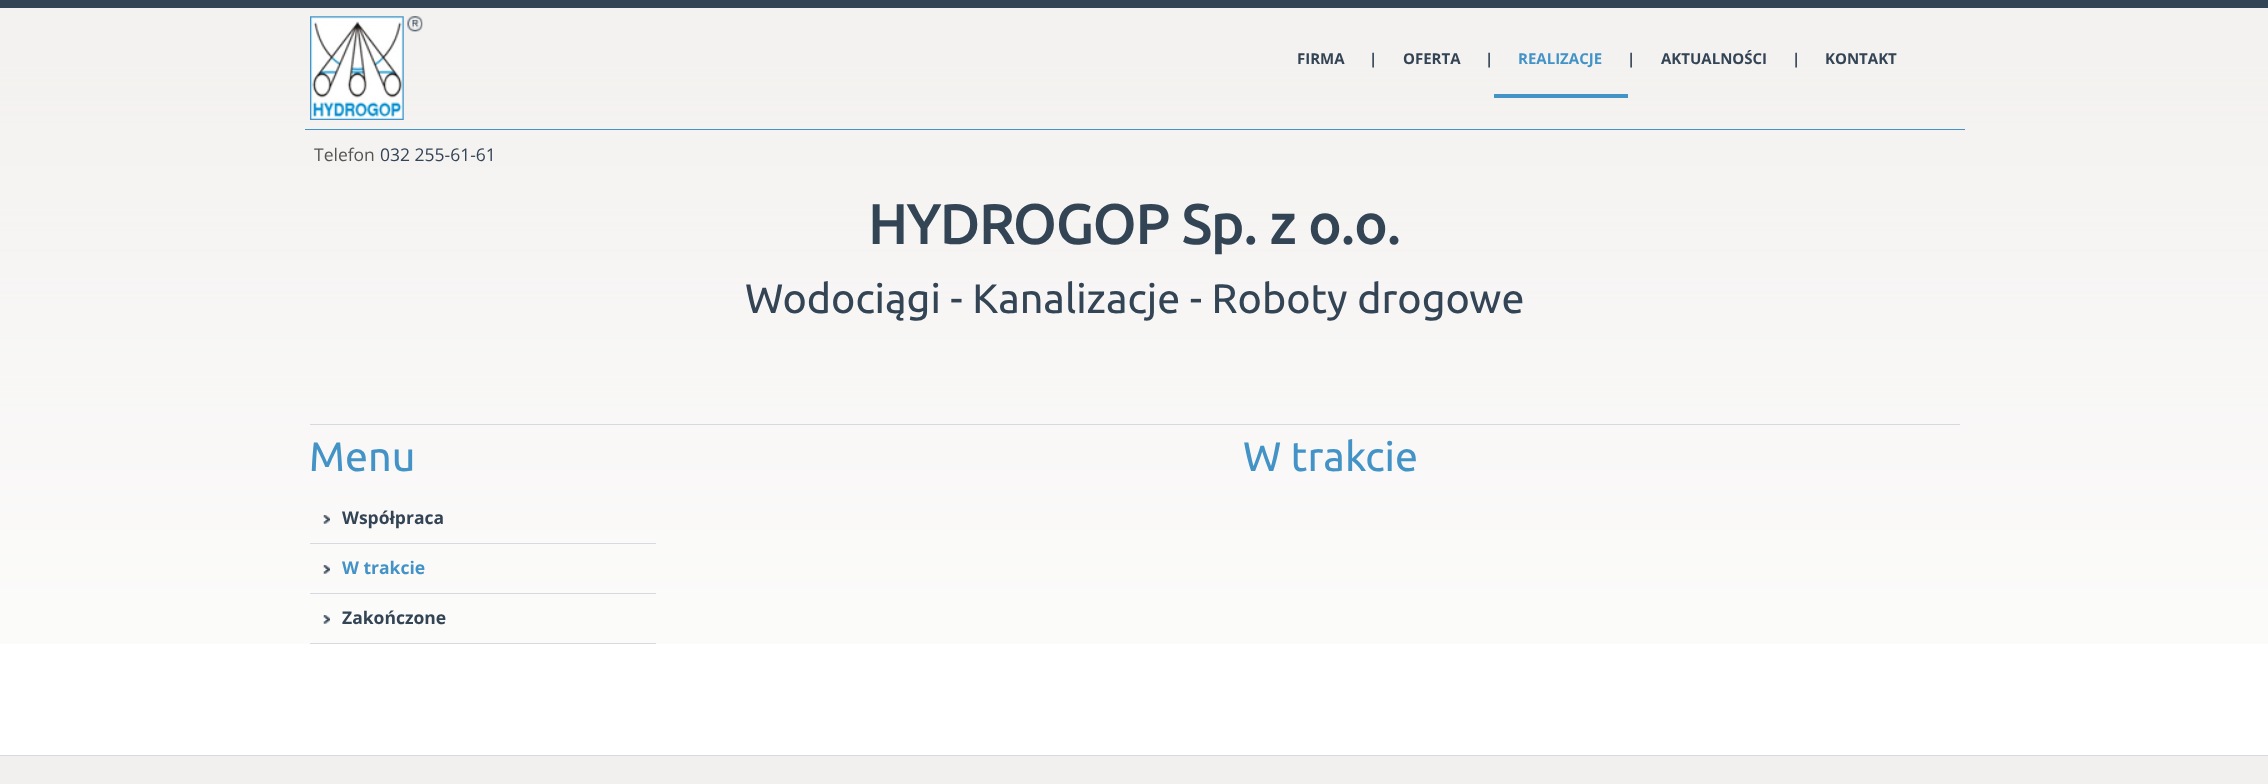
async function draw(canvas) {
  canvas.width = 2268;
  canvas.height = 784;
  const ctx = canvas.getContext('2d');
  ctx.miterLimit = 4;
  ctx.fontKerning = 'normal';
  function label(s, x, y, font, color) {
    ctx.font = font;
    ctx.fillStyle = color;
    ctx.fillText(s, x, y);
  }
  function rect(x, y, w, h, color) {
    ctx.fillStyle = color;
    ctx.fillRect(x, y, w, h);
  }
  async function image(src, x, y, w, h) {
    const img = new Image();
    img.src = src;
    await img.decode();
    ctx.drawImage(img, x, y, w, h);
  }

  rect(0, 0, 2268, 784, '#fff');
  await image('assets/img1.png', 0, 8, 2268, 636);
  rect(0, 0, 2268, 8, '#345');
  rect(305, 129, 1660, 1, '#4393c6');
  await image('assets/img2.png', 310, 16, 113, 104);
  label('FIRMA', 1297, 64, 'bold 15px Open Sans', '#345');
  label('|', 1369, 64, 'bold 15px Open Sans', '#345');
  label('OFERTA', 1403, 64, 'bold 15px Open Sans', '#345');
  label('|', 1485, 64, 'bold 15px Open Sans', '#345');
  label('REALIZACJE', 1518, 64, 'bold 15px Open Sans', '#4393c6');
  label('|', 1627, 64, 'bold 15px Open Sans', '#345');
  label('AKTUALNOŚCI', 1661, 64, 'bold 15px Open Sans', '#345');
  label('|', 1792, 64, 'bold 15px Open Sans', '#345');
  label('KONTAKT', 1825, 64, 'bold 15px Open Sans', '#345');
  rect(1494, 94, 134, 4, '#4393c6');
  label('Telefon', 314, 161, '17.5px Open Sans', '#555');
  label('032 255-61-61', 380, 161, '17.5px Open Sans', '#345');
  label('HYDROGOP Sp. z o.o.', 868, 244, 'bold 55px Ubuntu', '#345');
  label('Wodociągi - Kanalizacje - Roboty drogowe', 745, 313, '41.25px Ubuntu', '#345');
  rect(310, 424, 1650, 1, '#d6d9df');
  label('Menu', 309, 471, '41.25px Ubuntu', '#4393c6');
  rect(310, 543, 346, 1, '#d6d9df');
  await image('assets/img3.png', 323, 515, 7, 9);
  label('Współpraca', 342, 524, 'bold 17.5px Open Sans', '#345');
  rect(310, 593, 346, 1, '#d6d9df');
  await image('assets/img4.png', 323, 565, 7, 9);
  label('W trakcie', 342, 574, 'bold 17.5px Open Sans', '#4393c6');
  rect(310, 643, 346, 1, '#d6d9df');
  await image('assets/img5.png', 323, 615, 7, 9);
  label('Zakończone', 342, 624, 'bold 17.5px Open Sans', '#345');
  label('W trakcie', 1243, 471, '41.25px Ubuntu', '#4393c6');
  rect(0, 756, 2268, 28, '#f2f0ee');
  rect(0, 755, 2268, 1, '#d6d9df');
}

draw(document.querySelector('canvas'));
